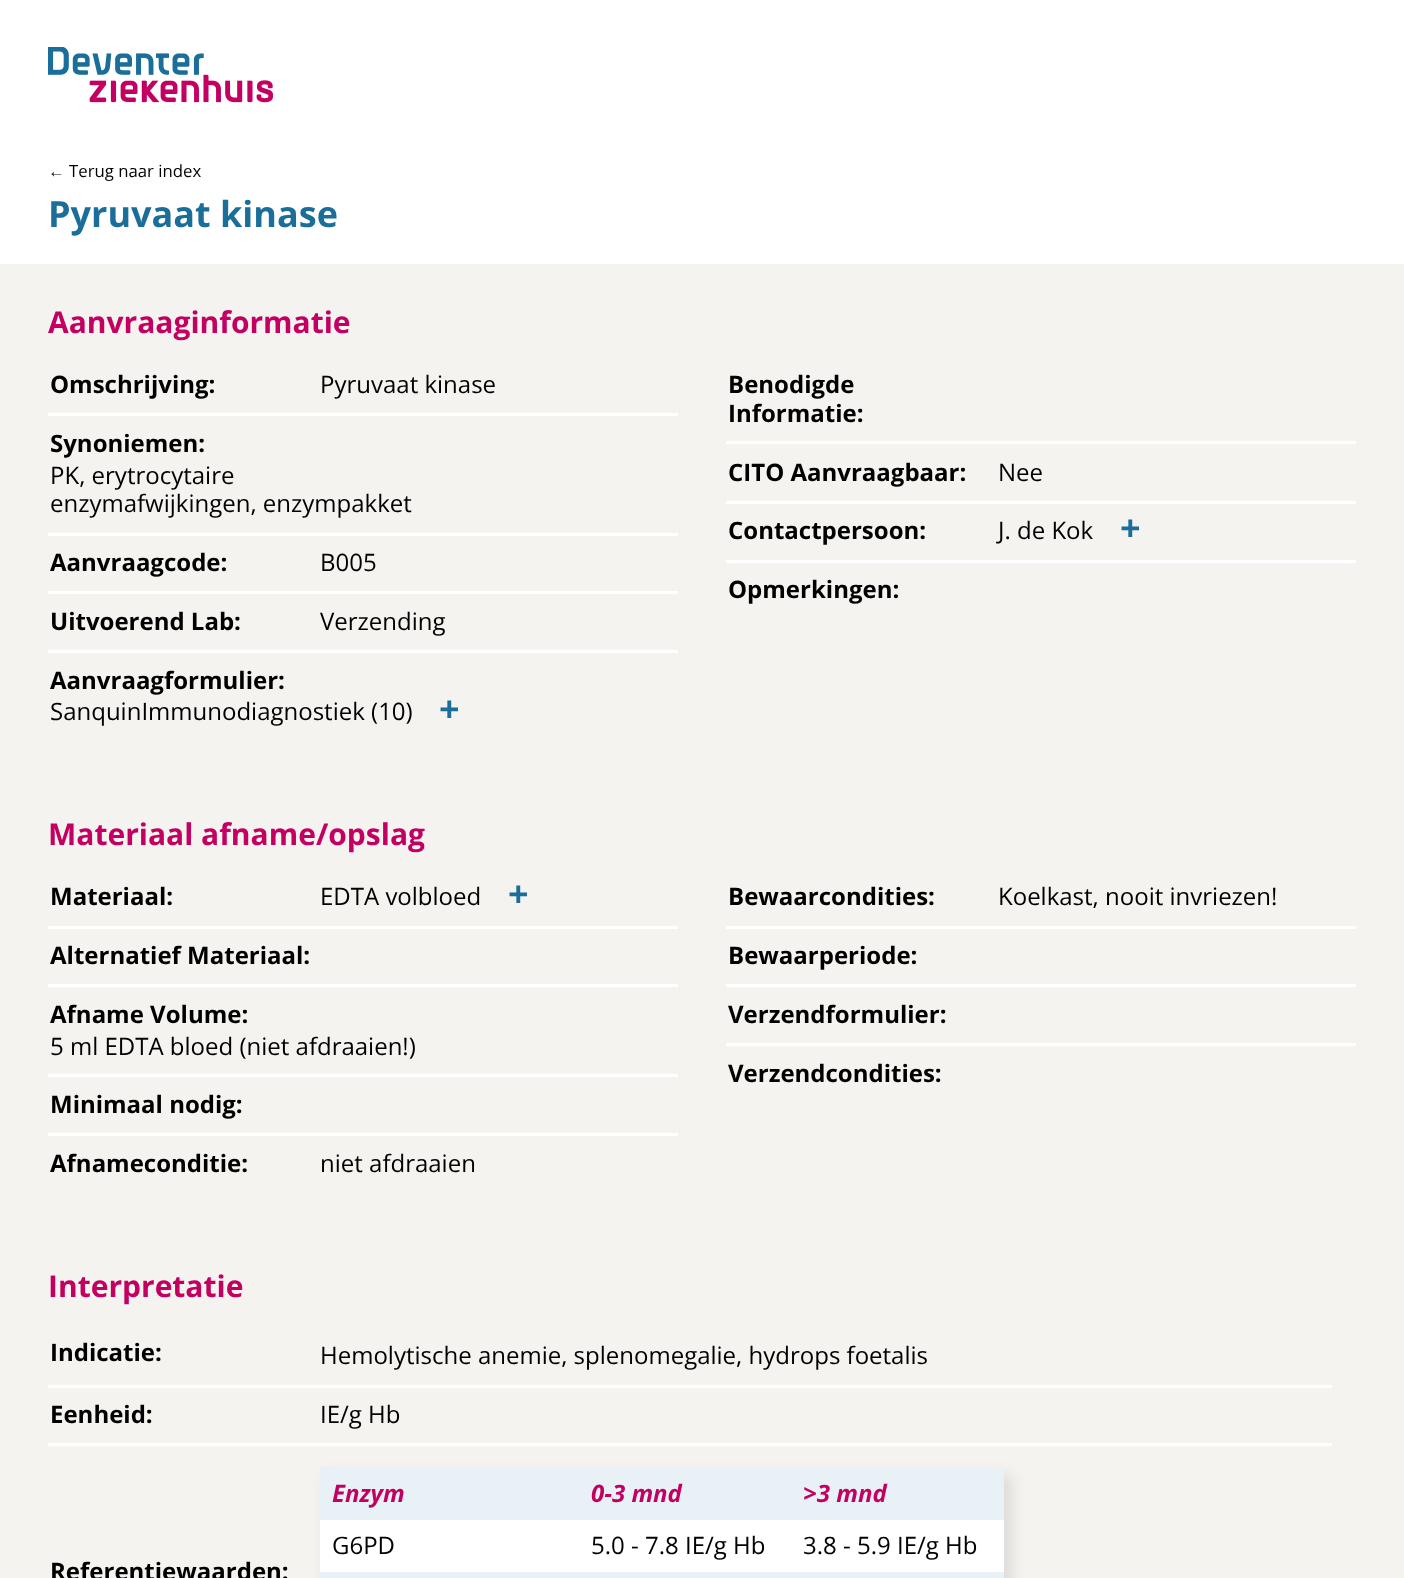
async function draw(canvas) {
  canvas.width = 1404;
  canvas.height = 1578;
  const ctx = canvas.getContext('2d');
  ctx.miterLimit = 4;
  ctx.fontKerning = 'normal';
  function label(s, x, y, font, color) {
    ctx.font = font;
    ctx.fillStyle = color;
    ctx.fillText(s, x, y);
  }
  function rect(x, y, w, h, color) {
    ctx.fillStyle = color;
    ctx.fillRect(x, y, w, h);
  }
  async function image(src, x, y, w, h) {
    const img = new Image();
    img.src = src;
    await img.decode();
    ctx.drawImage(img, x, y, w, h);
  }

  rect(0, 0, 1404, 1578, '#fff');
  await image('assets/img1.png', 48, 47, 225, 56);
  label('←', 48, 177, '16.75px Liberation Sans', '#000');
  label('Terug naar index', 69, 177, '16.75px Open Sans', '#000');
  label('Pyruvaat kinase', 48, 227, 'bold 36px Open Sans', '#1a6e99');
  rect(0, 264, 1404, 1314, '#f4f3f0');
  label('Aanvraaginformatie', 48, 333, 'bold 30px Open Sans', '#c30061');
  rect(48, 413, 630, 3, '#fff');
  label('Omschrijving:', 50, 393, 'bold 24px Open Sans', '#000');
  label('Pyruvaat kinase', 320, 393, '24px Open Sans', '#000');
  rect(48, 533, 630, 3, '#fff');
  label('Synoniemen:', 50, 452, 'bold 24px Open Sans', '#000');
  label('PK, erytrocytaire', 50, 484, '24px Open Sans', '#000');
  label('enzymafwijkingen, enzympakket', 50, 512, '24px Open Sans', '#000');
  rect(48, 591, 630, 3, '#fff');
  label('Aanvraagcode:', 50, 571, 'bold 24px Open Sans', '#000');
  label('B005', 320, 571, '24px Open Sans', '#000');
  rect(48, 650, 630, 3, '#fff');
  label('Uitvoerend Lab:', 50, 630, 'bold 24px Open Sans', '#000');
  label('Verzending', 320, 630, '24px Open Sans', '#000');
  label('Aanvraagformulier:', 50, 689, 'bold 24px Open Sans', '#000');
  label('SanquinImmunodiagnostiek (10)', 50, 720, '24px Open Sans', '#000');
  label('+', 439, 722, 'bold 36px Open Sans', '#1a6e99');
  rect(726, 441, 630, 3, '#fff');
  label('Benodigde', 728, 393, 'bold 24px Open Sans', '#000');
  label('Informatie:', 728, 422, 'bold 24px Open Sans', '#000');
  rect(726, 501, 630, 3, '#fff');
  label('CITO Aanvraagbaar:', 728, 481, 'bold 24px Open Sans', '#000');
  label('Nee', 998, 481, '24px Open Sans', '#000');
  rect(726, 560, 630, 3, '#fff');
  label('Contactpersoon:', 728, 539, 'bold 24px Open Sans', '#000');
  label('J. de Kok', 998, 539, '24px Open Sans', '#000');
  label('+', 1120, 541, 'bold 36px Open Sans', '#1a6e99');
  label('Opmerkingen:', 728, 598, 'bold 24px Open Sans', '#000');
  label('Materiaal afname/opslag', 48, 845, 'bold 30px Open Sans', '#c30061');
  rect(48, 926, 630, 3, '#fff');
  label('Materiaal:', 50, 905, 'bold 24px Open Sans', '#000');
  label('EDTA volbloed', 320, 905, '24px Open Sans', '#000');
  label('+', 508, 907, 'bold 36px Open Sans', '#1a6e99');
  rect(48, 984, 630, 3, '#fff');
  label('Alternatief Materiaal:', 50, 964, 'bold 24px Open Sans', '#000');
  rect(48, 1074, 630, 3, '#fff');
  label('Afname Volume:', 50, 1023, 'bold 24px Open Sans', '#000');
  label('5 ml EDTA bloed (niet afdraaien!)', 50, 1055, '24px Open Sans', '#000');
  rect(48, 1133, 630, 3, '#fff');
  label('Minimaal nodig:', 50, 1113, 'bold 24px Open Sans', '#000');
  label('Afnameconditie:', 50, 1172, 'bold 24px Open Sans', '#000');
  label('niet afdraaien', 320, 1172, '24px Open Sans', '#000');
  rect(726, 926, 630, 3, '#fff');
  label('Bewaarcondities:', 728, 905, 'bold 24px Open Sans', '#000');
  label('Koelkast, nooit invriezen!', 998, 905, '24px Open Sans', '#000');
  rect(726, 984, 630, 3, '#fff');
  label('Bewaarperiode:', 728, 964, 'bold 24px Open Sans', '#000');
  rect(726, 1043, 630, 3, '#fff');
  label('Verzendformulier:', 728, 1023, 'bold 24px Open Sans', '#000');
  label('Verzendcondities:', 728, 1082, 'bold 24px Open Sans', '#000');
  label('Interpretatie', 48, 1297, 'bold 30px Open Sans', '#c30061');
  rect(48, 1385, 1284, 3, '#fff');
  label('Indicatie:', 50, 1361, 'bold 24px Open Sans', '#000');
  label('Hemolytische anemie, splenomegalie, hydrops foetalis', 320, 1364, '24px Open Sans', '#000');
  rect(48, 1443, 1284, 3, '#fff');
  label('Eenheid:', 50, 1423, 'bold 24px Open Sans', '#000');
  label('IE/g Hb', 320, 1423, '24px Open Sans', '#000');
  ctx.fillStyle = '#0000001a';
  ctx.filter = 'blur(7.5px)';
  ctx.beginPath();
  ctx.rect(327, 1475, 684, 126);
  ctx.fill();
  ctx.filter = 'none';
  rect(320, 1467, 684, 53, '#e8f1f5');
  label('Enzym', 332, 1502, 'italic bold 24px Open Sans', '#c30061');
  label('0-3 mnd', 591, 1502, 'italic bold 24px Open Sans', '#c30061');
  label('>3 mnd', 803, 1502, 'italic bold 24px Open Sans', '#c30061');
  rect(320, 1520, 684, 52, '#fff');
  label('G6PD', 332, 1554, '24px Open Sans', '#000');
  label('5.0 - 7.8 IE/g Hb', 591, 1554, '24px Open Sans', '#000');
  label('3.8 - 5.9 IE/g Hb', 803, 1554, '24px Open Sans', '#000');
  rect(320, 1572, 684, 6, '#e8f1f5');
  label('Referentiewaarden:', 50, 1580, 'bold 24px Open Sans', '#000');
}

draw(document.querySelector('canvas'));
